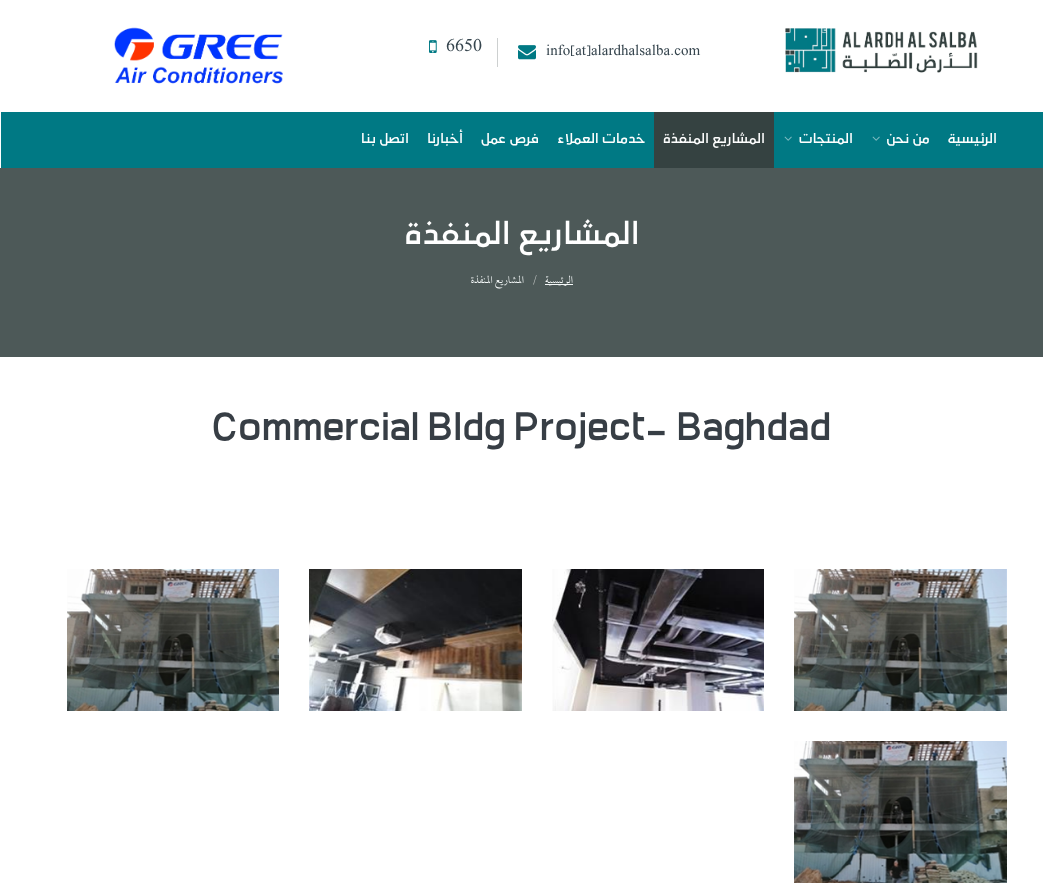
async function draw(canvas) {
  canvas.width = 1043;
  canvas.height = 883;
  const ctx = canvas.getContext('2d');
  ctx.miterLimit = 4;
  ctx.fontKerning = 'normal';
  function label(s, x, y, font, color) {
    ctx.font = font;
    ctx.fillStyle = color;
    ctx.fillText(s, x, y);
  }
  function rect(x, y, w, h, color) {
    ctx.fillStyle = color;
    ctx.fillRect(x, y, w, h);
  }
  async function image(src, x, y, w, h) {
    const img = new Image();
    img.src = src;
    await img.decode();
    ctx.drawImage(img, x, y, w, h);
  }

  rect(0, 0, 1043, 883, '#fff');
  await image('assets/img1.png', 785, 28, 193, 45);
  rect(497, 38, 1, 29, '#cdd0d0');
  label('info[at]alardhalsalba.com', 546, 55, '300 15px "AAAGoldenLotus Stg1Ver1"', '#36454e');
  await image('assets/img2.png', 518, 45, 18, 15);
  label('6650', 446, 51, '300 18px "AAAGoldenLotus Stg1Ver1"', '#36454e');
  await image('assets/img3.png', 429, 40, 8, 13);
  await image('assets/img4.png', 114, 27, 169, 57);
  rect(1, 112, 1042, 56, '#007984');
  ctx.direction = 'rtl';
  label('الرئيسية', 997, 143, '500 13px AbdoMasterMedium', '#fff');
  label('من نحن', 930, 143, '500 13px AbdoMasterMedium', '#fff');
  await image('assets/img5.png', 872, 136, 8, 5);
  label('المنتجات', 853, 143, '500 13px AbdoMasterMedium', '#fff');
  await image('assets/img5.png', 784, 136, 8, 5);
  rect(654, 112, 120, 56, '#354241');
  label('المشاريع المنفذة', 765, 143, '500 13px AbdoMasterMedium', '#fff');
  label('خدمات العملاء', 645, 143, '500 13px AbdoMasterMedium', '#fff');
  label('فرص عمل', 539, 143, '500 13px AbdoMasterMedium', '#fff');
  label('أخبارنا', 463, 143, '500 13px AbdoMasterMedium', '#fff');
  label('اتصل بنا', 409, 143, '500 13px AbdoMasterMedium', '#fff');
  rect(0, 168, 1043, 189, '#4d5958');
  label('المشاريع المنفذة', 640, 244, '500 30px AbdoMasterMedium', '#fff');
  rect(545, 284, 28, 1, '#f4f8f8');
  label('الرئيسية', 573, 283, '300 12px "AAAGoldenLotus Stg1Ver1"', '#f4f8f8');
  ctx.direction = 'ltr';
  label('/', 532, 283, '300 12px "AAAGoldenLotus Stg1Ver1"', '#b8bdbc');
  ctx.direction = 'rtl';
  label('المشاريع المنفذة', 524, 283, '300 12px "AAAGoldenLotus Stg1Ver1"', '#f4f8f8');
  ctx.direction = 'ltr';
  label('Commercial Bldg Project- Baghdad', 211, 440, '500 37.5px AbdoMasterMedium', '#373e45');
  await image('assets/img6.png', 794, 569, 213, 142);
  await image('assets/img7.png', 552, 569, 212, 142);
  await image('assets/img8.png', 309, 569, 213, 142);
  await image('assets/img9.png', 67, 569, 212, 142);
  await image('assets/img10.png', 794, 741, 213, 142);
}

draw(document.querySelector('canvas'));
